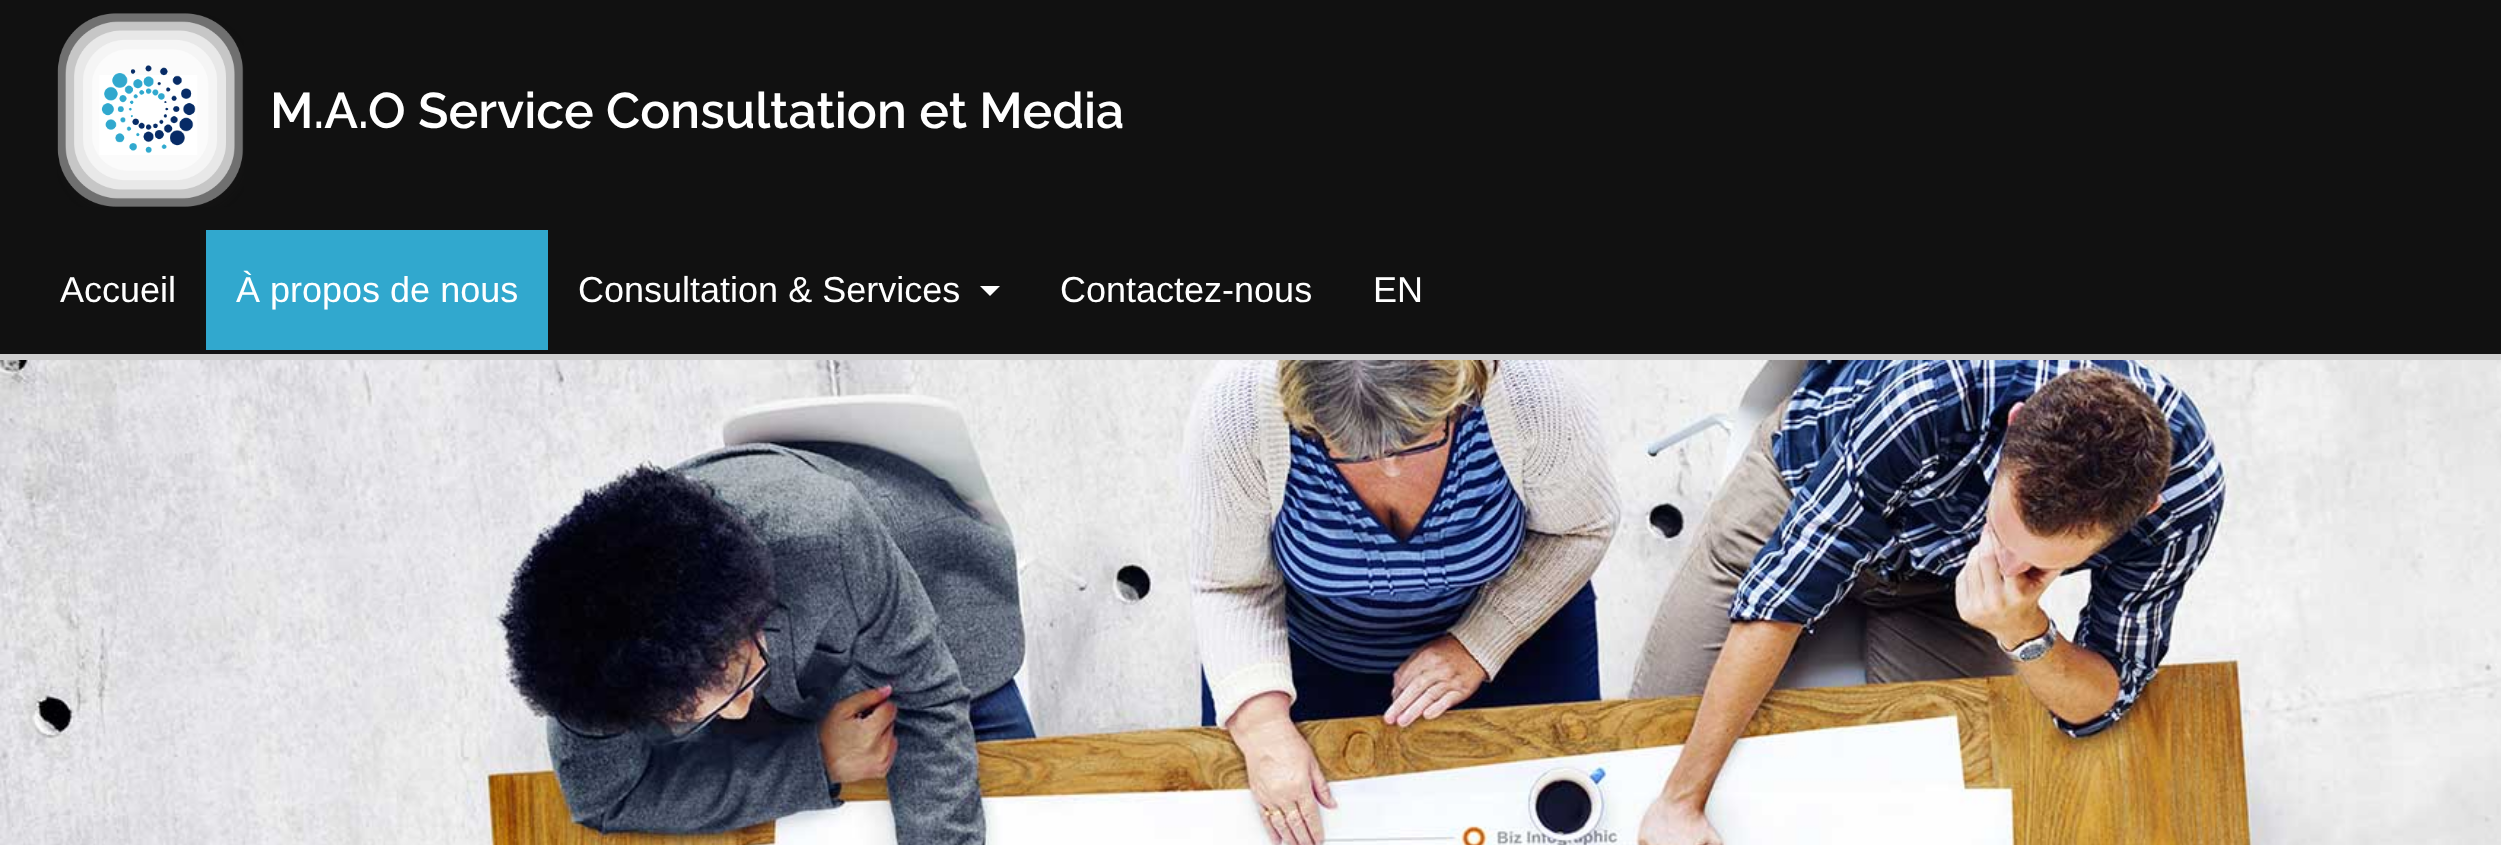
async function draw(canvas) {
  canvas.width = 2501;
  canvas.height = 845;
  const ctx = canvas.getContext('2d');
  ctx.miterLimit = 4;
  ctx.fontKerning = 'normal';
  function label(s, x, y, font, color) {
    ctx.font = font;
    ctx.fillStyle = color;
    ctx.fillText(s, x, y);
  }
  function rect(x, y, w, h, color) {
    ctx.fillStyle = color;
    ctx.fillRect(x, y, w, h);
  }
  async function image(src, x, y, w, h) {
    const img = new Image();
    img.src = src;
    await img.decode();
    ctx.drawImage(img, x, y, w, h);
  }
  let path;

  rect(0, 0, 2501, 845, '#fff');
  rect(0, 0, 2501, 354, '#111');
  rect(0, 354, 2501, 6, '#cfcfcf');
  await image('assets/img1.png', 57, 13, 187, 194);
  label('M.A.O Service Consultation et Media', 270, 128, '600 50px Raleway', '#fff');
  label('Accueil', 60, 302, '36px Liberation Sans', '#fff');
  rect(206, 230, 342, 120, '#31a8ce');
  label('À propos de nous', 236, 302, '36px Liberation Sans', '#fff');
  label('Consultation & Services', 578, 302, '36px Liberation Sans', '#fff');
  path = new Path2D('M980 286H1000L990 296Z');
  ctx.fill(path);
  label('Contactez-nous', 1060, 302, '36px Liberation Sans', '#fff');
  label('EN', 1373, 302, '36px Liberation Sans', '#fff');
  await image('assets/img2.png', 0, 360, 2501, 485);
}

draw(document.querySelector('canvas'));
